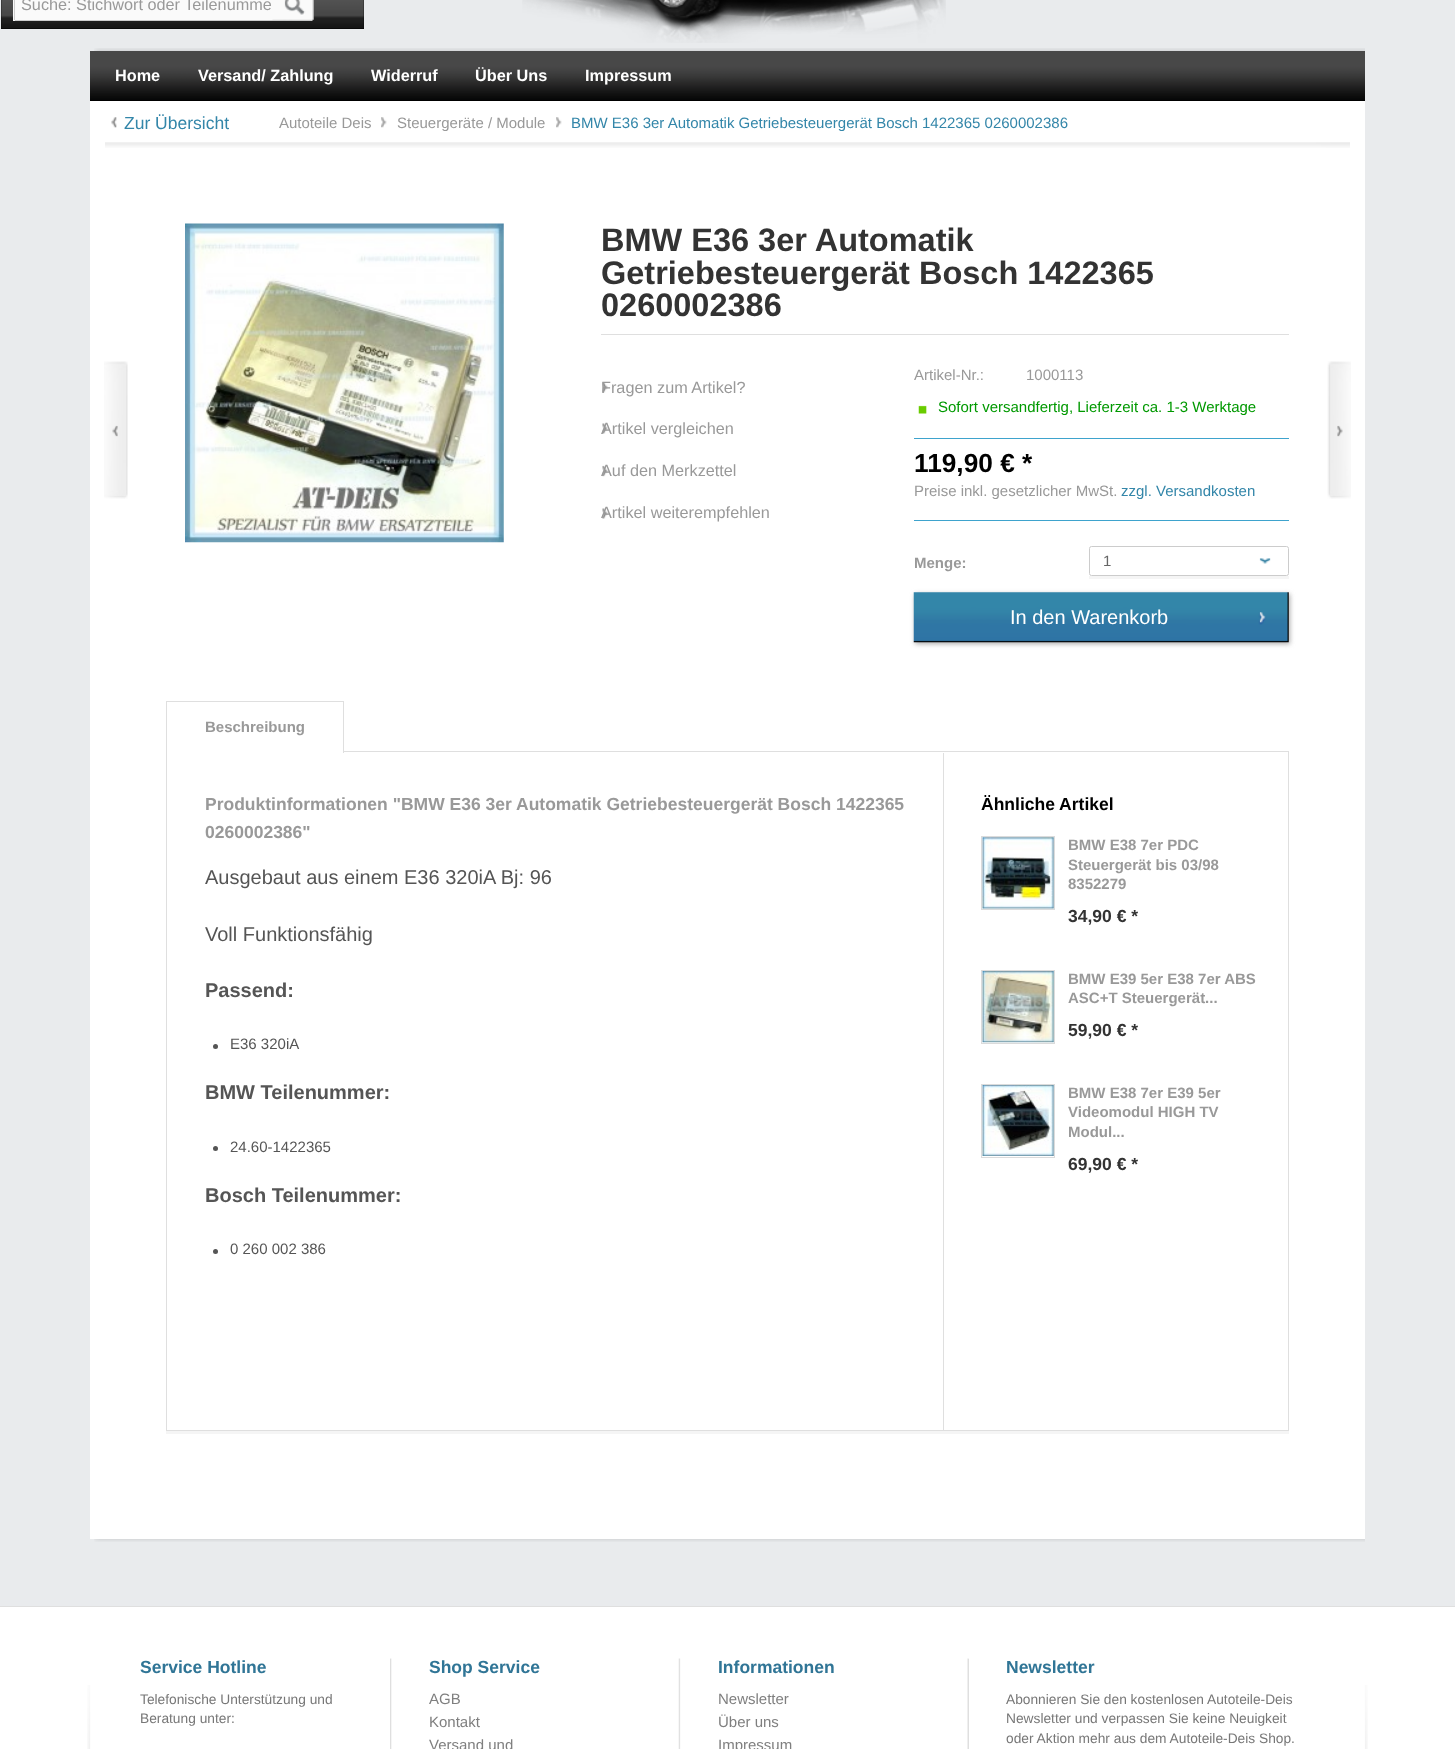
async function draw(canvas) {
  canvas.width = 1455;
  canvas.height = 1749;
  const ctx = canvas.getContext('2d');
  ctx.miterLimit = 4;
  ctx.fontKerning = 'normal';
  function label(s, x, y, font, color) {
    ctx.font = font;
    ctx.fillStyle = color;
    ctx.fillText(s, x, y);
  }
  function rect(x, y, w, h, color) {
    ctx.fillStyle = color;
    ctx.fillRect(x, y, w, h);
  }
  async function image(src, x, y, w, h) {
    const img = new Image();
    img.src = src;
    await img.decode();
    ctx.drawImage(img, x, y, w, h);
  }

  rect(0, 0, 1455, 1749, '#e9ebed');
  rect(1, 0, 363, 29, '#000');
  await image('assets/img1.png', 1, 0, 363, 29);
  rect(13, 0, 260, 21, '#fafafa');
  rect(15, 20, 258, 1, '#cdcdcd');
  rect(14, 0, 1, 20, '#cdcdcd');
  label('Suche: Stichwort oder Teilenumme', 21, 10, '16.25px Liberation Sans', '#999');
  await image('assets/img2.png', 272, 0, 42, 21);
  await image('assets/img3.png', 522, 0, 424, 43);
  await image('assets/img4.png', 94, 48, 1271, 3);
  await image('assets/img5.png', 90, 51, 1275, 49);
  rect(90, 100, 1275, 1, '#000');
  label('Home', 115, 81, 'bold 16.25px Liberation Sans', '#fff');
  label('Versand/ Zahlung', 198, 81, 'bold 16.25px Liberation Sans', '#fff');
  label('Widerruf', 371, 81, 'bold 16.25px Liberation Sans', '#fff');
  label('Über Uns', 475, 81, 'bold 16.25px Liberation Sans', '#fff');
  label('Impressum', 585, 81, 'bold 16.25px Liberation Sans', '#fff');
  rect(90, 101, 1275, 1438, '#fff');
  await image('assets/img6.png', 105, 142, 1245, 6);
  await image('assets/img7.png', 111, 117, 6, 11);
  label('Zur Übersicht', 124, 129, '17.5px Liberation Sans', '#3386a9');
  label('Autoteile Deis', 279, 128, '15px Liberation Sans', '#999');
  await image('assets/img8.png', 381, 117, 6, 11);
  label('Steuergeräte / Module', 397, 128, '15px Liberation Sans', '#999');
  await image('assets/img8.png', 556, 117, 6, 11);
  label('BMW E36 3er Automatik Getriebesteuergerät Bosch 1422365 0260002386', 571, 128, '15px Liberation Sans', '#3386a9');
  await image('assets/img9.png', 104, 361, 24, 138);
  await image('assets/img10.png', 112, 425, 6, 12);
  await image('assets/img11.png', 185, 223, 319, 320);
  rect(601, 334, 688, 1, '#dfdfdf');
  label('BMW E36 3er Automatik', 601, 251, 'bold 32.5px Liberation Sans', '#333');
  label('Getriebesteuergerät Bosch 1422365', 601, 284, 'bold 32.5px Liberation Sans', '#333');
  label('0260002386', 601, 316, 'bold 32.5px Liberation Sans', '#333');
  await image('assets/img12.png', 602, 382, 6, 11);
  label('Fragen zum Artikel?', 601, 393, '16.25px Liberation Sans', '#999');
  await image('assets/img13.png', 602, 423, 6, 11);
  label('Artikel vergleichen', 601, 434, '16.25px Liberation Sans', '#999');
  await image('assets/img14.png', 602, 465, 6, 12);
  label('Auf den Merkzettel', 601, 476, '16.25px Liberation Sans', '#999');
  await image('assets/img13.png', 602, 508, 6, 11);
  label('Artikel weiterempfehlen', 601, 518, '16.25px Liberation Sans', '#999');
  label('Artikel-Nr.:', 914, 380, '15px Liberation Sans', '#999');
  label('1000113', 1026, 380, '15px Liberation Sans', '#999');
  await image('assets/img15.png', 918, 405, 9, 9);
  label('Sofort versandfertig, Lieferzeit ca. 1-3 Werktage', 938, 412, '15px Liberation Sans', '#090');
  rect(914, 438, 375, 1, '#3ea3cd');
  label('119,90 € *', 914, 472, 'bold 26.25px Liberation Sans', '#000');
  label('Preise inkl. gesetzlicher MwSt.', 914, 496, '15px Liberation Sans', '#999');
  label('zzgl. Versandkosten', 1121, 496, '15px Liberation Sans', '#3386a9');
  rect(914, 520, 375, 1, '#3ea3cd');
  label('Menge:', 914, 568, 'bold 15px Liberation Sans', '#999');
  rect(1089, 576, 200, 3, '#f5f5f5');
  ctx.beginPath();
  ctx.roundRect(1089.5, 546.5, 199, 29, 2);
  ctx.strokeStyle = '#ccc';
  ctx.stroke();
  await image('assets/img16.png', 1259, 558, 12, 6);
  label('1', 1103, 566, '15px Liberation Sans', '#666');
  ctx.fillStyle = '#adadad';
  ctx.filter = 'blur(2.5px)';
  ctx.beginPath();
  ctx.rect(915, 594, 375, 50);
  ctx.fill();
  ctx.filter = 'none';
  await image('assets/img17.png', 913, 592, 376, 51);
  label('In den Warenkorb', 1010, 624, '20px Liberation Sans', '#fff');
  await image('assets/img18.png', 1327, 361, 24, 138);
  await image('assets/img19.png', 1337, 425, 6, 12);
  ctx.strokeStyle = '#dfdfdf';
  ctx.strokeRect(166.5, 751.5, 1122, 679);
  rect(167, 751, 176, 1, '#fff');
  rect(166, 701, 178, 1, '#dfdfdf');
  rect(343, 701, 1, 53, '#dfdfdf');
  rect(166, 753, 178, 1, '#fff');
  rect(166, 701, 1, 53, '#dfdfdf');
  label('Beschreibung', 205, 732, 'bold 15px Liberation Sans', '#999');
  label('Produktinformationen "BMW E36 3er Automatik Getriebesteuergerät Bosch 1422365', 205, 810, 'bold 17.5px Liberation Sans', '#999');
  label('0260002386"', 205, 838, 'bold 17.5px Liberation Sans', '#999');
  label('Ausgebaut aus einem E36 320iA Bj: 96', 205, 884, '20px Liberation Sans', '#555');
  label('Voll Funktionsfähig', 205, 941, '20px Liberation Sans', '#555');
  label('Passend:', 205, 997, 'bold 20px Liberation Sans', '#555');
  ctx.beginPath();
  ctx.arc(215.5, 1046.5, 2.5, 0, 2 * Math.PI);
  ctx.fill();
  label('E36 320iA', 230, 1049, '15px Liberation Sans', '#555');
  label('BMW Teilenummer:', 205, 1099, 'bold 20px Liberation Sans', '#555');
  ctx.beginPath();
  ctx.arc(215.5, 1148.5, 2.5, 0, 2 * Math.PI);
  ctx.fill();
  label('24.60-1422365', 230, 1152, '15px Liberation Sans', '#555');
  label('Bosch Teilenummer:', 205, 1202, 'bold 20px Liberation Sans', '#555');
  ctx.beginPath();
  ctx.arc(215.5, 1251.5, 2.5, 0, 2 * Math.PI);
  ctx.fill();
  label('0 260 002 386', 230, 1254, '15px Liberation Sans', '#555');
  rect(943, 753, 1, 677, '#dfdfdf');
  label('Ähnliche Artikel', 981, 810, 'bold 17.5px Liberation Sans', '#000');
  await image('assets/img20.png', 982, 837, 72, 72);
  ctx.strokeStyle = '#dbdbdb';
  ctx.strokeRect(981.5, 836.5, 73, 73);
  label('BMW E38 7er PDC', 1068, 850, 'bold 15px Liberation Sans', '#999');
  label('Steuergerät bis 03/98', 1068, 870, 'bold 15px Liberation Sans', '#999');
  label('8352279', 1068, 889, 'bold 15px Liberation Sans', '#999');
  label('34,90 € *', 1068, 922, 'bold 17.5px Liberation Sans', '#333');
  await image('assets/img21.png', 982, 971, 72, 72);
  ctx.strokeRect(981.5, 970.5, 73, 73);
  label('BMW E39 5er E38 7er ABS', 1068, 984, 'bold 15px Liberation Sans', '#999');
  label('ASC+T Steuergerät...', 1068, 1003, 'bold 15px Liberation Sans', '#999');
  label('59,90 € *', 1068, 1036, 'bold 17.5px Liberation Sans', '#333');
  await image('assets/img22.png', 982, 1085, 72, 71);
  ctx.strokeRect(981.5, 1084.5, 73, 73);
  label('BMW E38 7er E39 5er', 1068, 1098, 'bold 15px Liberation Sans', '#999');
  label('Videomodul HIGH TV', 1068, 1117, 'bold 15px Liberation Sans', '#999');
  label('Modul...', 1068, 1137, 'bold 15px Liberation Sans', '#999');
  label('69,90 € *', 1068, 1170, 'bold 17.5px Liberation Sans', '#333');
  rect(166, 1431, 1123, 3, '#f5f5f5');
  await image('assets/img23.png', 94, 1539, 1271, 3);
  rect(0, 1607, 1455, 142, '#fff');
  rect(0, 1606, 1455, 1, '#dfdfdf');
  await image('assets/img24.png', 87, 1685, 1281, 64);
  await image('assets/img25.png', 390, 1658, 579, 91);
  rect(390, 1659, 1, 90, '#dfdfdf');
  label('Service Hotline', 140, 1673, 'bold 17.5px Liberation Sans', '#307596');
  label('Telefonische Unterstützung und', 140, 1704, '13.75px Liberation Sans', '#777');
  label('Beratung unter:', 140, 1723, '13.75px Liberation Sans', '#777');
  label('Shop Service', 429, 1673, 'bold 17.5px Liberation Sans', '#307596');
  label('AGB', 429, 1704, '15px Liberation Sans', '#7f7f7f');
  label('Kontakt', 429, 1727, '15px Liberation Sans', '#7f7f7f');
  label('Versand und', 429, 1750, '15px Liberation Sans', '#7f7f7f');
  rect(968, 1659, 1, 90, '#dfdfdf');
  label('Informationen', 718, 1673, 'bold 17.5px Liberation Sans', '#307596');
  label('Newsletter', 718, 1704, '15px Liberation Sans', '#7f7f7f');
  label('Über uns', 718, 1727, '15px Liberation Sans', '#7f7f7f');
  label('Impressum', 718, 1750, '15px Liberation Sans', '#7f7f7f');
  label('Newsletter', 1006, 1673, 'bold 17.5px Liberation Sans', '#307596');
  label('Abonnieren Sie den kostenlosen Autoteile-Deis', 1006, 1704, '13.75px Liberation Sans', '#777');
  label('Newsletter und verpassen Sie keine Neuigkeit', 1006, 1723, '13.75px Liberation Sans', '#777');
  label('oder Aktion mehr aus dem Autoteile-Deis Shop.', 1006, 1743, '13.75px Liberation Sans', '#777');
}

draw(document.querySelector('canvas'));
